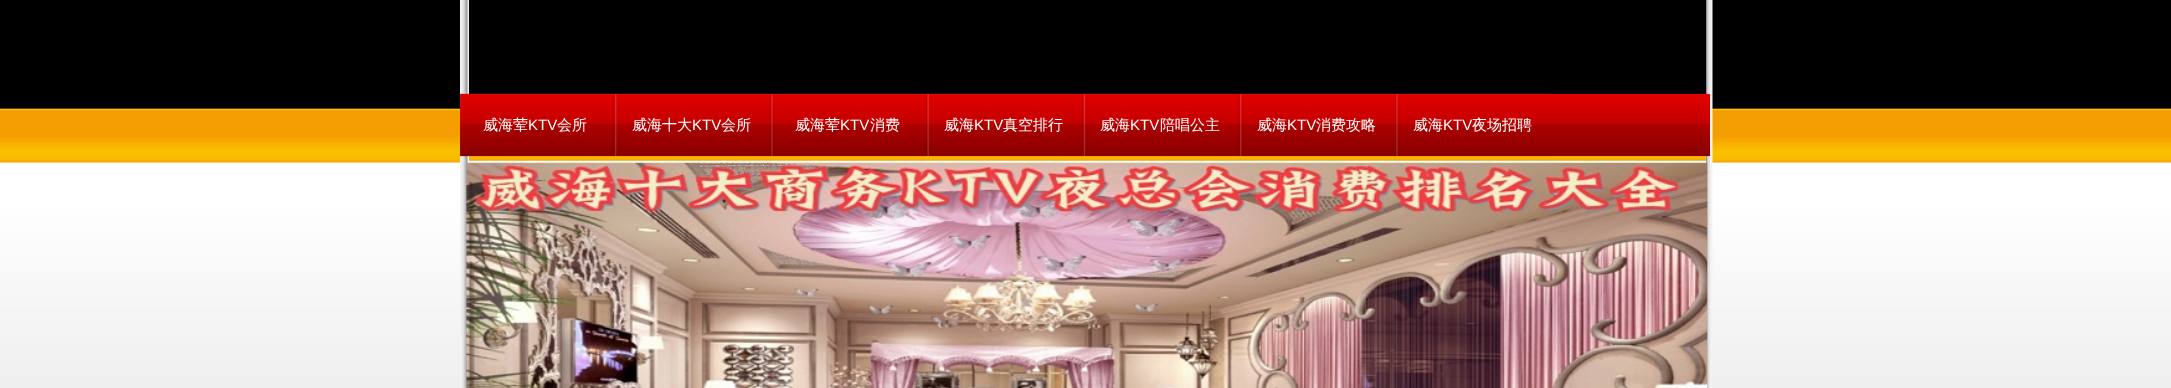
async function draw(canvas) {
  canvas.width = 2171;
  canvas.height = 388;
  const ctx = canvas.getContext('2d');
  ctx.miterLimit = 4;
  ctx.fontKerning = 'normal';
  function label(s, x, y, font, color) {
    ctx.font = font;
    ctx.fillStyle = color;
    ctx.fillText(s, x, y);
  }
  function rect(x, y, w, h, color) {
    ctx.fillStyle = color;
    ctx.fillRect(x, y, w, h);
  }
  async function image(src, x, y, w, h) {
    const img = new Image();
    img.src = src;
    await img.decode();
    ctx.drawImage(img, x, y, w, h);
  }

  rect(0, 0, 2171, 388, '#fff');
  await image('assets/img1.png', 0, 0, 2171, 388);
  await image('assets/img2.png', 460, 0, 1253, 388);
  await image('assets/img3.png', 468, 0, 1239, 163);
  await image('assets/img4.png', 460, 93, 1250, 64);
  await image('assets/img5.png', 460, 93, 154, 64);
  label('威海荤', 483, 130, '500 15px WenQuanYi Zen Hei', '#fff');
  label('KTV', 528, 130, '15px Liberation Sans', '#fff');
  label('会所', 557, 130, '500 15px WenQuanYi Zen Hei', '#fff');
  await image('assets/img6.png', 613, 93, 157, 64);
  label('威海十大', 632, 130, '500 15px WenQuanYi Zen Hei', '#fff');
  label('KTV', 692, 130, '15px Liberation Sans', '#fff');
  label('会所', 721, 130, '500 15px WenQuanYi Zen Hei', '#fff');
  await image('assets/img7.png', 770, 93, 156, 64);
  label('威海荤', 795, 130, '500 15px WenQuanYi Zen Hei', '#fff');
  label('KTV', 840, 130, '15px Liberation Sans', '#fff');
  label('消费', 870, 130, '500 15px WenQuanYi Zen Hei', '#fff');
  await image('assets/img8.png', 926, 93, 157, 64);
  label('威海', 944, 130, '500 15px WenQuanYi Zen Hei', '#fff');
  label('KTV', 974, 130, '15px Liberation Sans', '#fff');
  label('真空排行', 1003, 130, '500 15px WenQuanYi Zen Hei', '#fff');
  await image('assets/img9.png', 1082, 93, 157, 64);
  label('威海', 1100, 130, '500 15px WenQuanYi Zen Hei', '#fff');
  label('KTV', 1130, 130, '15px Liberation Sans', '#fff');
  label('陪唱公主', 1160, 130, '500 15px WenQuanYi Zen Hei', '#fff');
  await image('assets/img6.png', 1238, 93, 157, 64);
  label('威海', 1257, 130, '500 15px WenQuanYi Zen Hei', '#fff');
  label('KTV', 1287, 130, '15px Liberation Sans', '#fff');
  label('消费攻略', 1316, 130, '500 15px WenQuanYi Zen Hei', '#fff');
  await image('assets/img7.png', 1395, 93, 156, 64);
  label('威海', 1413, 130, '500 15px WenQuanYi Zen Hei', '#fff');
  label('KTV', 1443, 130, '15px Liberation Sans', '#fff');
  label('夜场招聘', 1472, 130, '500 15px WenQuanYi Zen Hei', '#fff');
  await image('assets/img10.png', 466, 162, 1242, 226);
}

draw(document.querySelector('canvas'));
